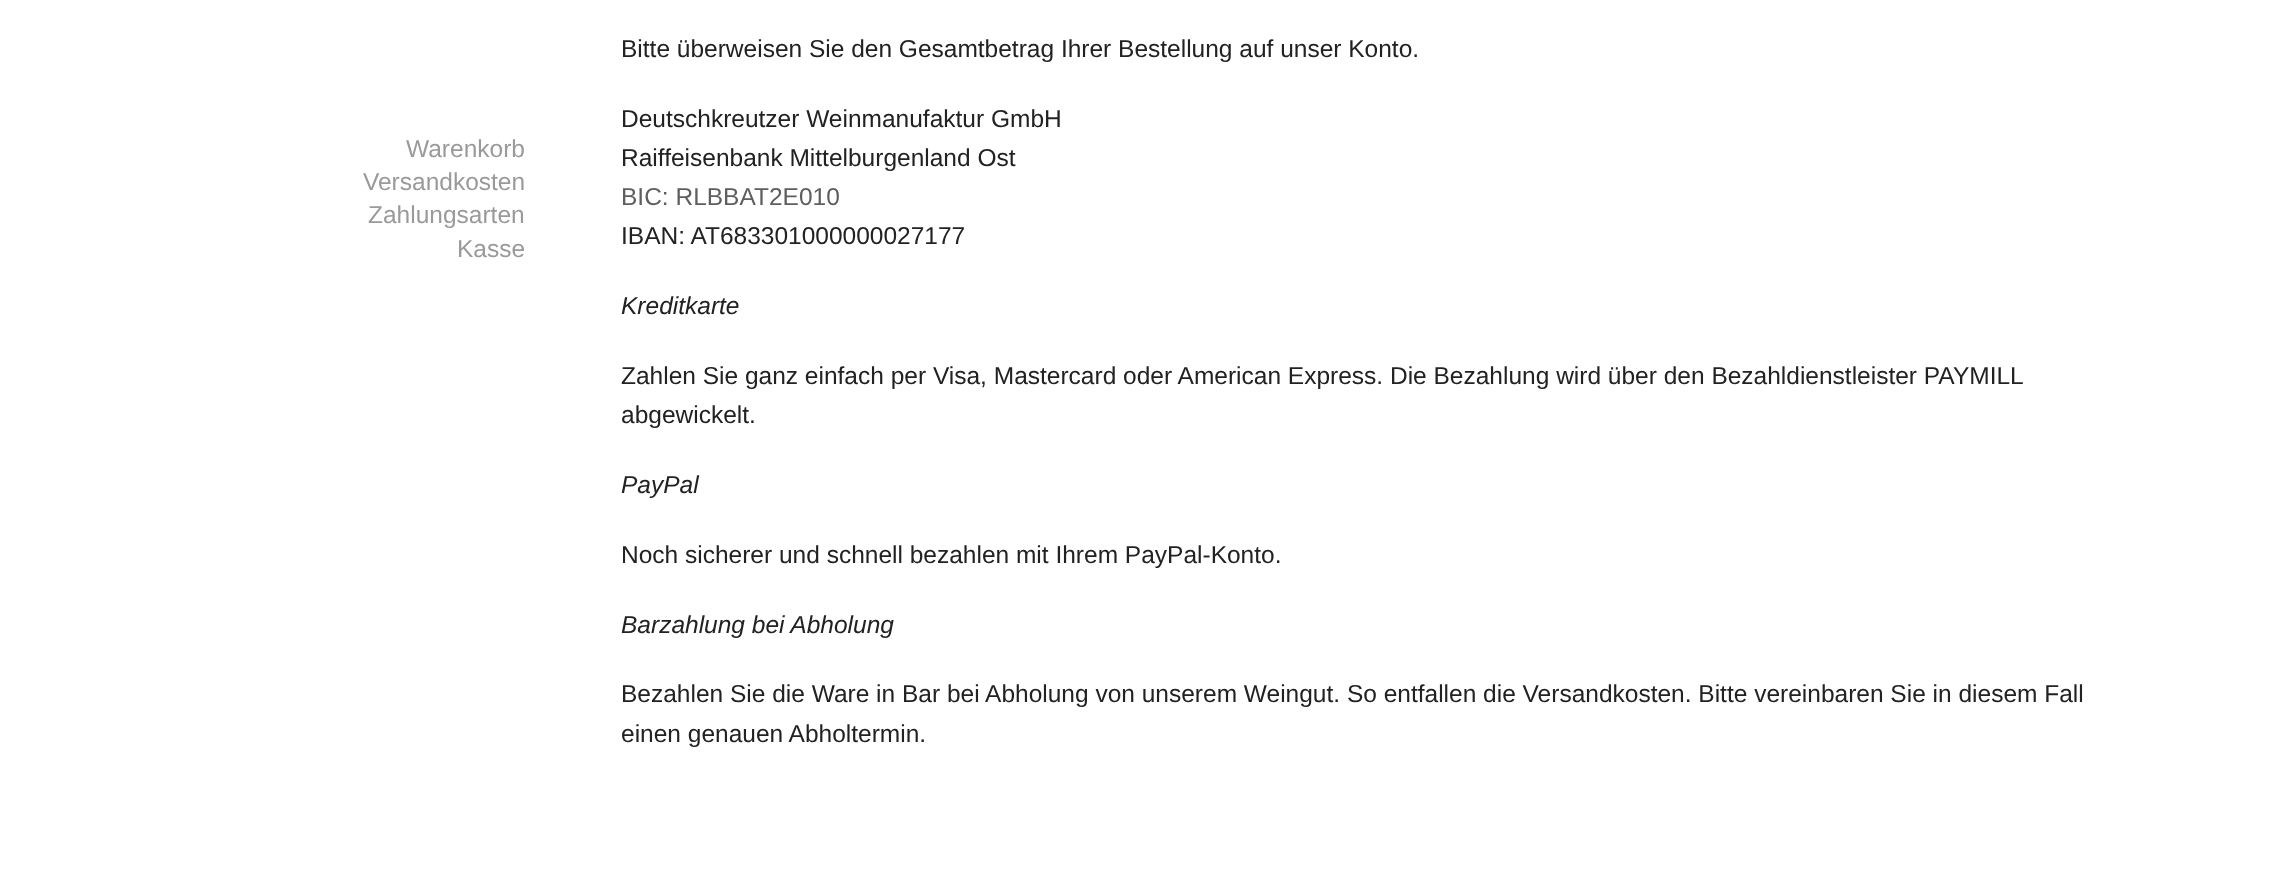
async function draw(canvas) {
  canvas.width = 2269;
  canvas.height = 878;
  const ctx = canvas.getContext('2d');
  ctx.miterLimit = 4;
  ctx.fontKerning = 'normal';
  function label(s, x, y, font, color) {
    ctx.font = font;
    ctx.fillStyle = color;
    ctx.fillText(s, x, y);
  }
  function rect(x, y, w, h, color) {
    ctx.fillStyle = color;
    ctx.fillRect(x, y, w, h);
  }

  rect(0, 0, 2269, 878, '#fff');
  label('Warenkorb', 406, 157, '24.5px Liberation Sans', '#9a9a9a');
  label('Versandkosten', 363, 190, '24.5px Liberation Sans', '#9a9a9a');
  label('Zahlungsarten', 368, 223, '24.5px Liberation Sans', '#9a9a9a');
  label('Kasse', 457, 257, '24.5px Liberation Sans', '#9a9a9a');
  label('Bitte überweisen Sie den Gesamtbetrag Ihrer Bestellung auf unser Konto.', 621, 57, '24.5px Liberation Sans', '#222');
  label('Deutschkreutzer Weinmanufaktur GmbH', 621, 127, '24.5px Liberation Sans', '#222');
  label('Raiffeisenbank Mittelburgenland Ost', 621, 166, '24.5px Liberation Sans', '#222');
  label('BIC: RLBBAT2E010', 621, 205, '24.5px Liberation Sans', '#5e5e5e');
  label('IBAN: AT683301000000027177', 621, 244, '24.5px Liberation Sans', '#222');
  label('Kreditkarte', 621, 314, 'italic 24.5px Liberation Sans', '#222');
  label('Zahlen Sie ganz einfach per Visa, Mastercard oder American Express. Die Bezahlung wird über den Bezahldienstleister PAYMILL', 621, 384, '24.5px Liberation Sans', '#222');
  label('abgewickelt.', 621, 423, '24.5px Liberation Sans', '#222');
  label('PayPal', 621, 493, 'italic 24.5px Liberation Sans', '#222');
  label('Noch sicherer und schnell bezahlen mit Ihrem PayPal-Konto.', 621, 563, '24.5px Liberation Sans', '#222');
  label('Barzahlung bei Abholung', 621, 633, 'italic 24.5px Liberation Sans', '#222');
  label('Bezahlen Sie die Ware in Bar bei Abholung von unserem Weingut. So entfallen die Versandkosten. Bitte vereinbaren Sie in diesem Fall', 621, 702, '24.5px Liberation Sans', '#222');
  label('einen genauen Abholtermin.', 621, 742, '24.5px Liberation Sans', '#222');
}

draw(document.querySelector('canvas'));
